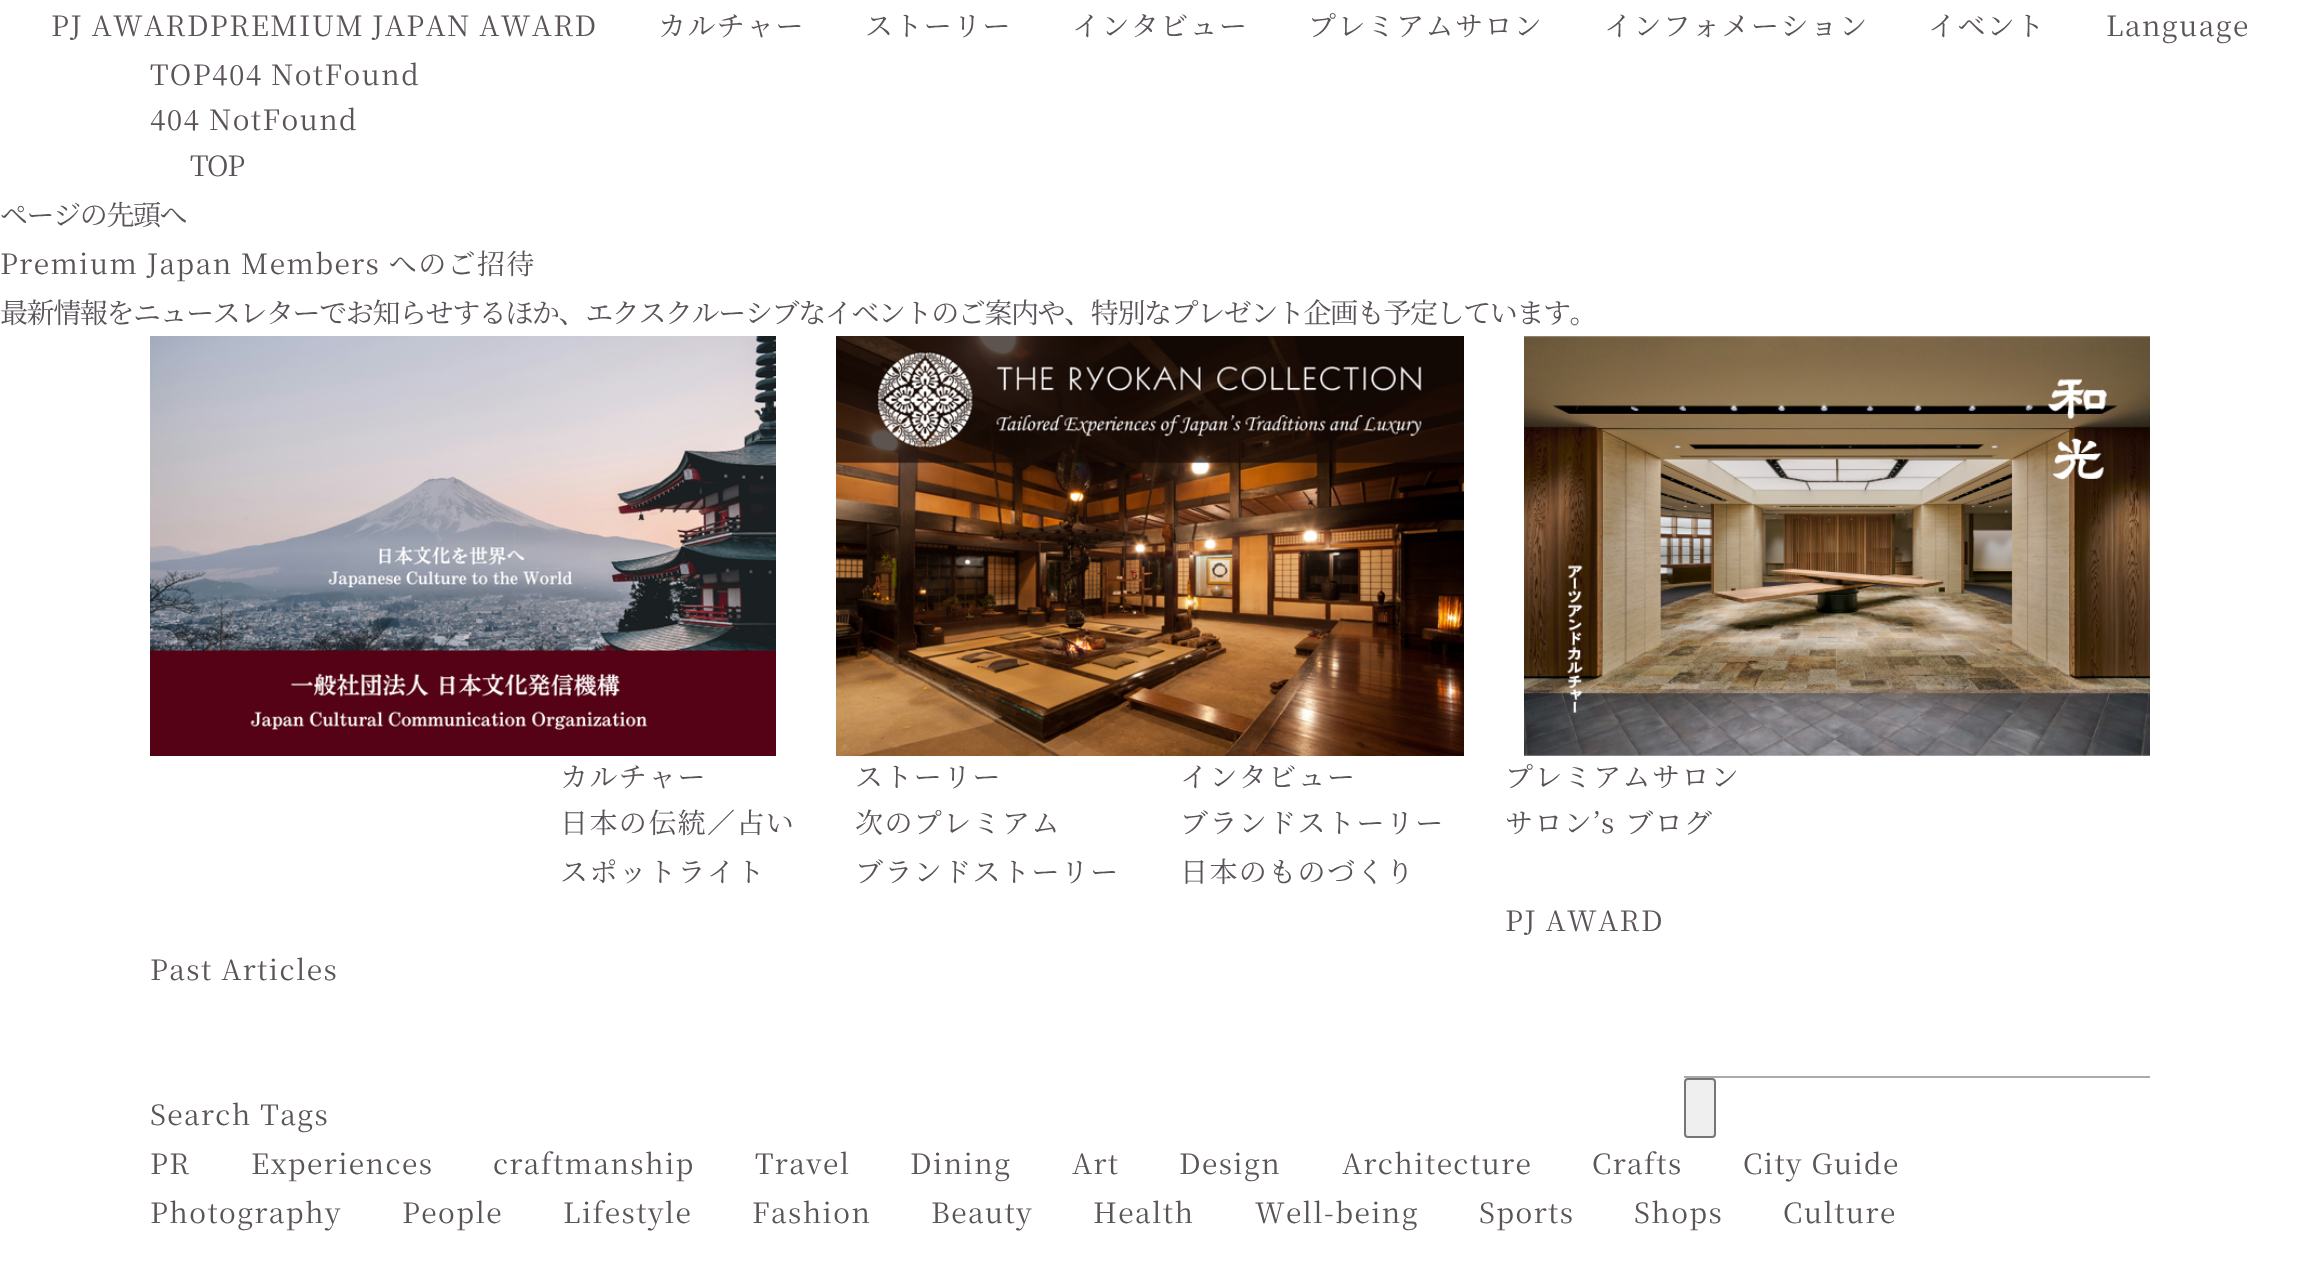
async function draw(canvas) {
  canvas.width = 2300;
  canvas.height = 1285;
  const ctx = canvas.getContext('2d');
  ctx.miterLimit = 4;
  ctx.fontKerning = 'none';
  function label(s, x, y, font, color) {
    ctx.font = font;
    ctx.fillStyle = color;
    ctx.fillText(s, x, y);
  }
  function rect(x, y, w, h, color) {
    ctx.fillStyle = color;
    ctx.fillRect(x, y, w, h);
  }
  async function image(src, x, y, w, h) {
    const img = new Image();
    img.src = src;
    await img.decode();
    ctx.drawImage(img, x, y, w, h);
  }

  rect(0, 0, 2300, 1285, '#fff');
  ctx.letterSpacing = '1.4px';
  label('PJ AWARDPREMIUM', 51, 36, '200 28px Noto Serif JP', '#5a5359');
  label('JAPAN AWARD', 372, 36, '200 28px Noto Serif JP', '#5a5359');
  label('カルチャー', 658, 36, '200 28px Noto Serif JP', '#5a5359');
  label('ストーリー', 865, 36, '200 28px Noto Serif JP', '#5a5359');
  label('インタビュー', 1072, 36, '200 28px Noto Serif JP', '#5a5359');
  label('プレミアムサロン', 1308, 36, '200 28px Noto Serif JP', '#5a5359');
  label('インフォメーション', 1604, 36, '200 28px Noto Serif JP', '#5a5359');
  label('イベント', 1928, 36, '200 28px Noto Serif JP', '#5a5359');
  label('Language', 2106, 36, '200 28px Noto Serif JP', '#5a5359');
  label('TOP404 NotFound', 150, 85, '200 28px Noto Serif JP', '#5a5359');
  label('404 NotFound', 150, 130, '200 28px Noto Serif JP', '#5a5359');
  ctx.letterSpacing = '-1.4px';
  label('TOP', 190, 176, '200 28px Noto Serif JP', '#5a5359');
  label('ページの先頭へ', 0, 225, '200 28px Noto Serif JP', '#5a5359');
  ctx.letterSpacing = '1.4px';
  label('Premium Japan Members へのご招待', 0, 274, '200 28px Noto Serif JP', '#5a5359');
  ctx.letterSpacing = '-1.4px';
  label('最新情報をニュースレターでお知らせするほか、エクスクルー', 0, 323, '200 28px Noto Serif JP', '#5a5359');
  label('シブなイベントのご案内や、特別なプレゼント企画も予定しています。', 745, 323, '200 28px Noto Serif JP', '#5a5359');
  await image('assets/img1.png', 150, 336, 626, 420);
  await image('assets/img2.png', 836, 336, 628, 420);
  await image('assets/img3.png', 1524, 336, 626, 420);
  ctx.letterSpacing = '1.4px';
  label('カルチャー', 560, 787, '200 28px Noto Serif JP', '#5a5359');
  label('日本の伝統／占い', 560, 833, '200 28px Noto Serif JP', '#5a5359');
  label('スポットライト', 560, 882, '200 28px Noto Serif JP', '#5a5359');
  label('ストーリー', 855, 787, '200 28px Noto Serif JP', '#5a5359');
  label('次のプレミアム', 855, 833, '200 28px Noto Serif JP', '#5a5359');
  label('ブランドストーリー', 855, 882, '200 28px Noto Serif JP', '#5a5359');
  label('インタビュー', 1180, 787, '200 28px Noto Serif JP', '#5a5359');
  label('ブランドストーリー', 1180, 833, '200 28px Noto Serif JP', '#5a5359');
  label('日本のものづくり', 1180, 882, '200 28px Noto Serif JP', '#5a5359');
  label('プレミアムサロン', 1505, 787, '200 28px Noto Serif JP', '#5a5359');
  ctx.wordSpacing = '1px';
  label('サロン’s ブログ', 1505, 833, '200 28px Noto Serif JP', '#5a5359');
  ctx.wordSpacing = '0px';
  label('PJ AWARD', 1505, 931, '200 28px Noto Serif JP', '#5a5359');
  label('Past Articles', 150, 980, '200 28px Noto Serif JP', '#5a5359');
  label('Search Tags', 150, 1125, '200 28px Noto Serif JP', '#5a5359');
  rect(1684, 1076, 466, 2, '#aaa');
  ctx.fillStyle = '#efefef';
  ctx.beginPath();
  ctx.roundRect(1685, 1079, 30, 58, 3);
  ctx.fill();
  ctx.strokeStyle = '#767676';
  ctx.lineWidth = 2;
  ctx.stroke();
  label('PR', 150, 1174, '200 28px Noto Serif JP', '#5a5359');
  label('Experiences', 251, 1174, '200 28px Noto Serif JP', '#5a5359');
  label('craftmanship', 493, 1174, '200 28px Noto Serif JP', '#5a5359');
  label('Travel', 755, 1174, '200 28px Noto Serif JP', '#5a5359');
  label('Dining', 910, 1174, '200 28px Noto Serif JP', '#5a5359');
  label('Art', 1072, 1174, '200 28px Noto Serif JP', '#5a5359');
  label('Design', 1179, 1174, '200 28px Noto Serif JP', '#5a5359');
  label('Architecture', 1342, 1174, '200 28px Noto Serif JP', '#5a5359');
  label('Crafts', 1592, 1174, '200 28px Noto Serif JP', '#5a5359');
  label('City Guide', 1743, 1174, '200 28px Noto Serif JP', '#5a5359');
  label('Photography', 150, 1223, '200 28px Noto Serif JP', '#5a5359');
  label('People', 402, 1223, '200 28px Noto Serif JP', '#5a5359');
  label('Lifestyle', 563, 1223, '200 28px Noto Serif JP', '#5a5359');
  label('Fashion', 752, 1223, '200 28px Noto Serif JP', '#5a5359');
  label('Beauty', 931, 1223, '200 28px Noto Serif JP', '#5a5359');
  label('Health', 1093, 1223, '200 28px Noto Serif JP', '#5a5359');
  label('Well-being', 1255, 1223, '200 28px Noto Serif JP', '#5a5359');
  label('Sports', 1479, 1223, '200 28px Noto Serif JP', '#5a5359');
  label('Shops', 1634, 1223, '200 28px Noto Serif JP', '#5a5359');
  label('Culture', 1783, 1223, '200 28px Noto Serif JP', '#5a5359');
}

draw(document.querySelector('canvas'));
